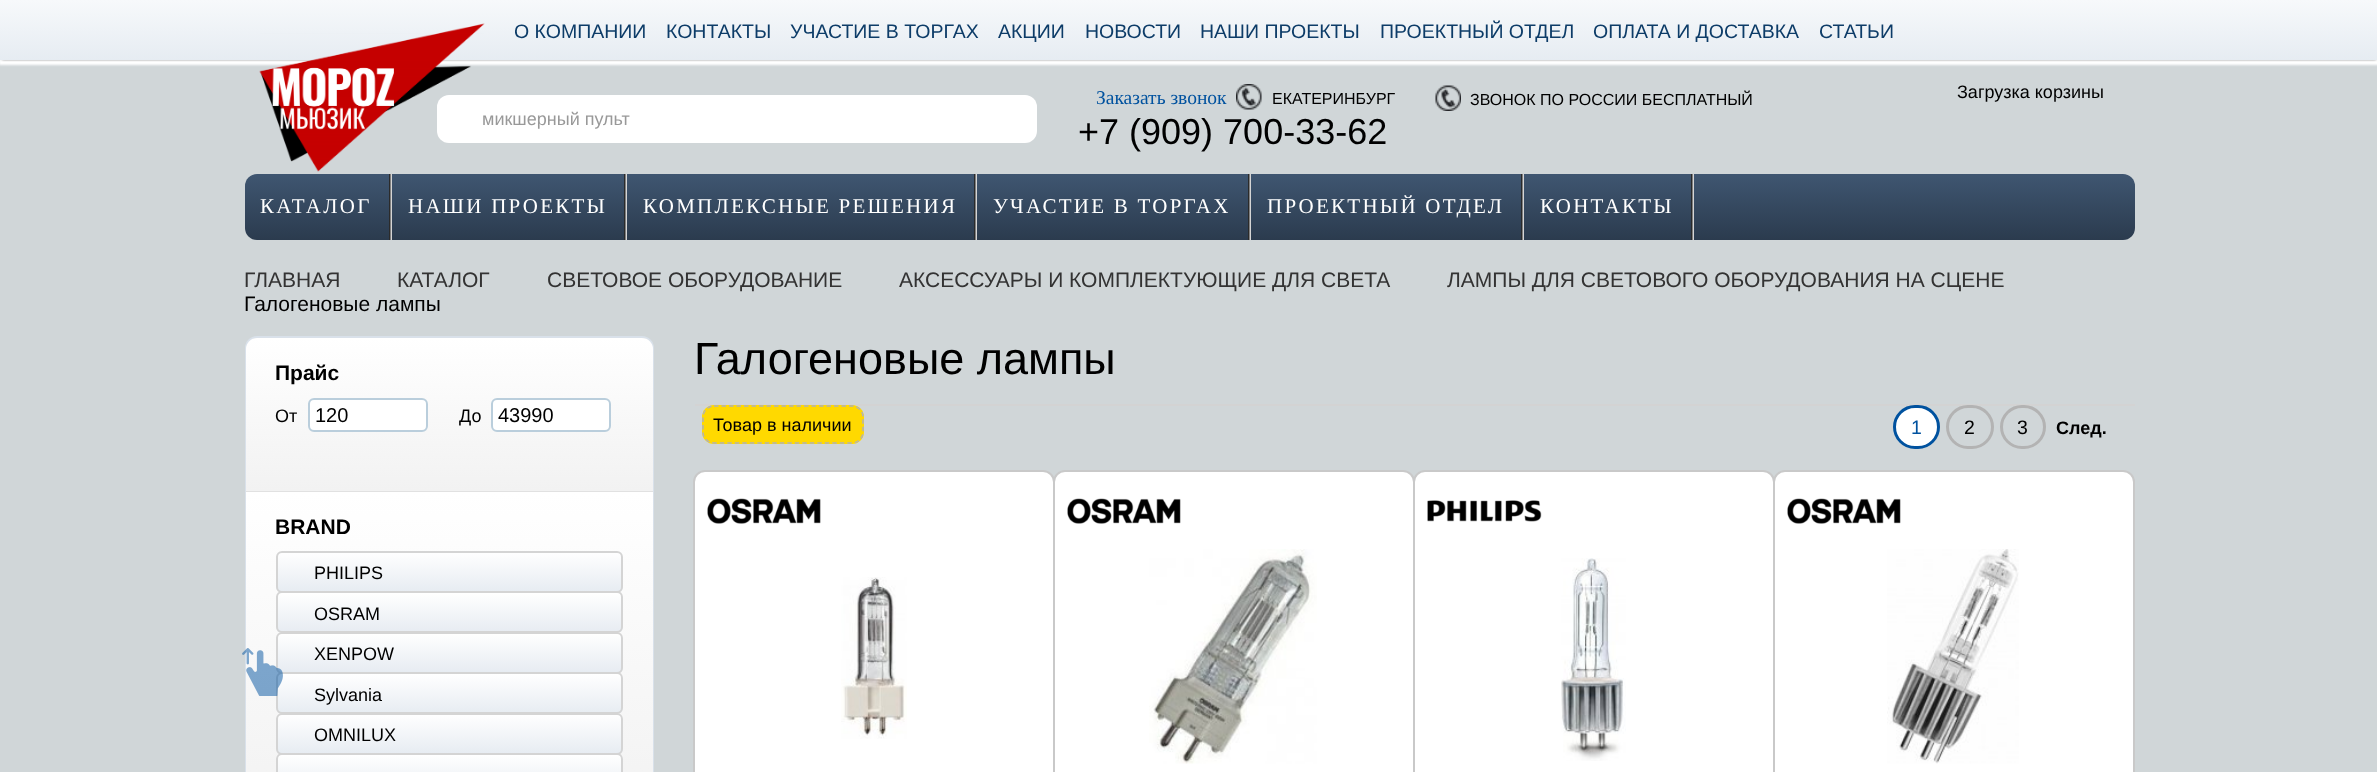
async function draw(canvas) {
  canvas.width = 2377;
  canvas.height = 772;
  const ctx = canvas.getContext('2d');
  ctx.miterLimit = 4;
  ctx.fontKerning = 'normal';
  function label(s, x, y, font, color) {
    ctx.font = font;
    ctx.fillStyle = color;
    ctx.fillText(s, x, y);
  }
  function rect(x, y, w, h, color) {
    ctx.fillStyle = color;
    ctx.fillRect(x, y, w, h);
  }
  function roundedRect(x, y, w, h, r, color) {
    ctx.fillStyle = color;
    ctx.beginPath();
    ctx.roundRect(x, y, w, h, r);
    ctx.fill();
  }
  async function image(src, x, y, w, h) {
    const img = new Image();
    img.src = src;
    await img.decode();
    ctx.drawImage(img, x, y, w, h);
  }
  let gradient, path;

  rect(0, 0, 2377, 772, '#d0d6d8');
  ctx.fillStyle = '#fff';
  ctx.filter = 'blur(1px)';
  ctx.beginPath();
  ctx.rect(-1, 2, 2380, 63);
  ctx.fill();
  ctx.filter = 'none';
  ctx.fillStyle = '#000';
  ctx.filter = 'blur(1.5px)';
  ctx.beginPath();
  ctx.rect(2, 2, 2374, 57);
  ctx.fill();
  ctx.filter = 'none';
  gradient = ctx.createLinearGradient(1189, 0, 1189, 60);
  gradient.addColorStop(0, '#f7f9fb');
  gradient.addColorStop(1, '#e6ecf2');
  ctx.fillStyle = gradient;
  ctx.fillRect(0, 0, 2377, 60);
  roundedRect(437, 95, 600, 48, 12, '#fff');
  label('микшерный пульт', 482, 125, '18px Liberation Sans', '#999');
  await image('assets/img1.png', 259, 23, 226, 149);
  ctx.save();
  ctx.beginPath();
  ctx.rect(515, 0, 1399, 60);
  ctx.clip();
  label('О КОМПАНИИ', 514, 38, '19.5px Liberation Sans', '#0d3c68');
  ctx.restore();
  label('КОНТАКТЫ', 666, 38, '19.5px Liberation Sans', '#0d3c68');
  label('УЧАСТИЕ В ТОРГАХ', 790, 38, '19.5px Liberation Sans', '#0d3c68');
  label('АКЦИИ', 998, 38, '19.5px Liberation Sans', '#0d3c68');
  label('НОВОСТИ', 1085, 38, '19.5px Liberation Sans', '#0d3c68');
  label('НАШИ ПРОЕКТЫ', 1200, 38, '19.5px Liberation Sans', '#0d3c68');
  label('ПРОЕКТНЫЙ ОТДЕЛ', 1380, 38, '19.5px Liberation Sans', '#0d3c68');
  label('ОПЛАТА И ДОСТАВКА', 1593, 38, '19.5px Liberation Sans', '#0d3c68');
  label('СТАТЬИ', 1819, 38, '19.5px Liberation Sans', '#0d3c68');
  label('Заказать звонок', 1096, 104, '19.5px Liberation Serif', '#00529f');
  await image('assets/img2.png', 1236, 84, 26, 26);
  label('ЕКАТЕРИНБУРГ', 1272, 104, '16px Liberation Sans', '#000');
  label('+7 (909) 700-33-62', 1078, 144, '36px Liberation Sans', '#000');
  await image('assets/img3.png', 1435, 85, 26, 26);
  label('ЗВОНОК ПО РОССИИ БЕСПЛАТНЫЙ', 1470, 105, '16px Liberation Sans', '#000');
  label('Загрузка корзины', 1957, 98, '18px Liberation Sans', '#000');
  gradient = ctx.createLinearGradient(1190, 174, 1190, 240);
  gradient.addColorStop(0, '#3f5671');
  gradient.addColorStop(1, '#2b3b4e');
  ctx.fillStyle = gradient;
  ctx.beginPath();
  ctx.roundRect(245, 174, 1890, 66, 12);
  ctx.fill();
  ctx.letterSpacing = '2.25px';
  label('КАТАЛОГ', 260, 213, '21px Liberation Serif', '#fff');
  gradient = ctx.createLinearGradient(389, 207, 392, 207);
  gradient.addColorStop(0, '#000');
  gradient.addColorStop(1, '#fff');
  ctx.fillStyle = gradient;
  ctx.fillRect(389, 174, 3, 66);
  label('НАШИ ПРОЕКТЫ', 408, 213, '21px Liberation Serif', '#fff');
  gradient = ctx.createLinearGradient(624, 207, 627, 207);
  gradient.addColorStop(0, '#000');
  gradient.addColorStop(1, '#fff');
  ctx.fillStyle = gradient;
  ctx.fillRect(624, 174, 3, 66);
  label('КОМПЛЕКСНЫЕ РЕШЕНИЯ', 643, 213, '21px Liberation Serif', '#fff');
  gradient = ctx.createLinearGradient(974, 207, 977, 207);
  gradient.addColorStop(0, '#000');
  gradient.addColorStop(1, '#fff');
  ctx.fillStyle = gradient;
  ctx.fillRect(974, 174, 3, 66);
  label('УЧАСТИЕ В ТОРГАХ', 993, 213, '21px Liberation Serif', '#fff');
  gradient = ctx.createLinearGradient(1248, 207, 1251, 207);
  gradient.addColorStop(0, '#000');
  gradient.addColorStop(1, '#fff');
  ctx.fillStyle = gradient;
  ctx.fillRect(1248, 174, 3, 66);
  label('ПРОЕКТНЫЙ ОТДЕЛ', 1267, 213, '21px Liberation Serif', '#fff');
  gradient = ctx.createLinearGradient(1521, 207, 1524, 207);
  gradient.addColorStop(0, '#000');
  gradient.addColorStop(1, '#fff');
  ctx.fillStyle = gradient;
  ctx.fillRect(1521, 174, 3, 66);
  label('КОНТАКТЫ', 1540, 213, '21px Liberation Serif', '#fff');
  gradient = ctx.createLinearGradient(1691, 207, 1694, 207);
  gradient.addColorStop(0, '#000');
  gradient.addColorStop(1, '#fff');
  ctx.fillStyle = gradient;
  ctx.fillRect(1691, 174, 3, 66);
  ctx.letterSpacing = '0px';
  label('ГЛАВНАЯ', 244, 287, '21px Liberation Sans', '#333');
  label('КАТАЛОГ', 397, 287, '21px Liberation Sans', '#333');
  label('СВЕТОВОЕ ОБОРУДОВАНИЕ', 547, 287, '21px Liberation Sans', '#333');
  label('АКСЕССУАРЫ И КОМПЛЕКТУЮЩИЕ ДЛЯ СВЕТА', 899, 287, '21px Liberation Sans', '#333');
  label('ЛАМПЫ ДЛЯ СВЕТОВОГО ОБОРУДОВАНИЯ НА СЦЕНЕ', 1447, 287, '21px Liberation Sans', '#333');
  label('Галогеновые лампы', 244, 311, '21px Liberation Sans', '#000');
  ctx.beginPath();
  ctx.roundRect(246, 337, 407, 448, 11);
  ctx.strokeStyle = '#d9e1ea';
  ctx.lineWidth = 2;
  ctx.stroke();
  gradient = ctx.createLinearGradient(449, 338, 449, 491);
  gradient.addColorStop(0, '#fff');
  gradient.addColorStop(1, '#f2f2f2');
  ctx.fillStyle = gradient;
  ctx.beginPath();
  ctx.roundRect(246, 338, 407, 153, [11, 11, 0, 0]);
  ctx.fill();
  rect(246, 491, 407, 1, '#e1e1e1');
  label('Прайс', 275, 380, 'bold 21px Liberation Sans', '#000');
  label('От', 275, 422, '18px Liberation Sans', '#000');
  ctx.fillStyle = '#fff';
  ctx.beginPath();
  ctx.roundRect(309, 399, 118, 32, 5);
  ctx.fill();
  ctx.strokeStyle = '#bacedc';
  ctx.stroke();
  label('120', 315, 422, '20px Liberation Sans', '#000');
  label('До', 459, 422, '18px Liberation Sans', '#000');
  ctx.fillStyle = '#fff';
  ctx.beginPath();
  ctx.roundRect(492, 399, 118, 32, 5);
  ctx.fill();
  ctx.stroke();
  label('43990', 498, 422, '20px Liberation Sans', '#000');
  gradient = ctx.createLinearGradient(449, 492, 449, 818);
  gradient.addColorStop(0, '#fff');
  gradient.addColorStop(1, '#f2f2f2');
  ctx.fillStyle = gradient;
  ctx.fillRect(246, 492, 407, 280);
  label('BRAND', 275, 534, 'bold 21px Liberation Sans', '#000');
  ctx.save();
  ctx.beginPath();
  ctx.roundRect(276, 551, 347, 42, 6);
  ctx.clip();
  gradient = ctx.createLinearGradient(449, 552, 449, 591);
  gradient.addColorStop(0, '#fff');
  gradient.addColorStop(1, '#e7ecf2');
  ctx.fillStyle = gradient;
  ctx.fillRect(276, 552, 347, 39);
  ctx.restore();
  ctx.beginPath();
  ctx.roundRect(277, 552, 345, 40, 5);
  ctx.strokeStyle = '#d4d4d4';
  ctx.stroke();
  label('PHILIPS', 314, 579, '18px Liberation Sans', '#000');
  ctx.save();
  ctx.beginPath();
  ctx.roundRect(276, 591, 347, 42, 6);
  ctx.clip();
  gradient = ctx.createLinearGradient(449, 593, 449, 632);
  gradient.addColorStop(0, '#fff');
  gradient.addColorStop(1, '#e7ecf2');
  ctx.fillStyle = gradient;
  ctx.fillRect(276, 593, 347, 39);
  ctx.restore();
  ctx.beginPath();
  ctx.roundRect(277, 592, 345, 40, 5);
  ctx.stroke();
  label('OSRAM', 314, 620, '18px Liberation Sans', '#000');
  ctx.save();
  ctx.beginPath();
  ctx.roundRect(276, 632, 347, 42, 6);
  ctx.clip();
  gradient = ctx.createLinearGradient(449, 633, 449, 672);
  gradient.addColorStop(0, '#fff');
  gradient.addColorStop(1, '#e7ecf2');
  ctx.fillStyle = gradient;
  ctx.fillRect(276, 633, 347, 39);
  ctx.restore();
  ctx.beginPath();
  ctx.roundRect(277, 633, 345, 40, 5);
  ctx.stroke();
  label('XENPOW', 314, 660, '18px Liberation Sans', '#000');
  ctx.save();
  ctx.beginPath();
  ctx.roundRect(276, 672, 347, 42, 6);
  ctx.clip();
  gradient = ctx.createLinearGradient(449, 674, 449, 713);
  gradient.addColorStop(0, '#fff');
  gradient.addColorStop(1, '#e7ecf2');
  ctx.fillStyle = gradient;
  ctx.fillRect(276, 674, 347, 39);
  ctx.restore();
  ctx.beginPath();
  ctx.roundRect(277, 673, 345, 40, 5);
  ctx.stroke();
  label('Sylvania', 314, 701, '18px Liberation Sans', '#000');
  ctx.save();
  ctx.beginPath();
  ctx.roundRect(276, 713, 347, 42, 6);
  ctx.clip();
  gradient = ctx.createLinearGradient(449, 714, 449, 753);
  gradient.addColorStop(0, '#fff');
  gradient.addColorStop(1, '#e7ecf2');
  ctx.fillStyle = gradient;
  ctx.fillRect(276, 714, 347, 39);
  ctx.restore();
  ctx.beginPath();
  ctx.roundRect(277, 714, 345, 40, 5);
  ctx.stroke();
  label('OMNILUX', 314, 741, '18px Liberation Sans', '#000');
  ctx.save();
  ctx.beginPath();
  ctx.roundRect(276, 753, 347, 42, 6);
  ctx.clip();
  gradient = ctx.createLinearGradient(449, 755, 449, 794);
  gradient.addColorStop(0, '#fff');
  gradient.addColorStop(1, '#e7ecf2');
  ctx.fillStyle = gradient;
  ctx.fillRect(276, 755, 347, 17);
  ctx.restore();
  ctx.beginPath();
  ctx.roundRect(277, 754, 345, 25, 5);
  ctx.stroke();
  label('Галогеновые лампы', 694, 374, '45px Liberation Sans', '#000');
  rect(695, 404, 1440, 2, '#d3d3d3');
  roundedRect(702, 405, 162, 39, 12, '#ffd900');
  path = new Path2D('M714 406H852C858 406 863 411 863 417V432C863 438 858 443 852 443H714C708 443 703 438 703 432V417C703 411 708 406 714 406Z');
  ctx.strokeStyle = '#b3b3b3';
  ctx.lineWidth = 1.5;
  ctx.setLineDash([4.5, 3]);
  ctx.stroke(path);
  label('Товар в наличии', 713, 431, '18px Liberation Sans', '#000');
  ctx.fillStyle = '#fff';
  ctx.beginPath();
  ctx.roundRect(1894.5, 406.5, 44, 41, 20.5);
  ctx.fill();
  ctx.strokeStyle = '#00529f';
  ctx.lineWidth = 3;
  ctx.setLineDash([]);
  ctx.stroke();
  label('1', 1911, 434, '19.5px Liberation Sans', '#00529f');
  ctx.beginPath();
  ctx.roundRect(1947.5, 406.5, 45, 41, 20.5);
  ctx.strokeStyle = '#b3b3b3';
  ctx.stroke();
  label('2', 1964, 434, '19.5px Liberation Sans', '#000');
  ctx.beginPath();
  ctx.roundRect(2001.5, 406.5, 43, 41, 20.5);
  ctx.stroke();
  label('3', 2017, 434, '19.5px Liberation Sans', '#000');
  label('След.', 2056, 434, 'bold 18px Liberation Sans', '#000');
  ctx.fillStyle = '#fff';
  ctx.beginPath();
  ctx.roundRect(694, 471, 360, 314, 11);
  ctx.fill();
  ctx.strokeStyle = '#c9c9c9';
  ctx.lineWidth = 2;
  ctx.stroke();
  await image('assets/img4.png', 707, 498, 114, 26);
  await image('assets/img5.png', 841, 577, 66, 162);
  ctx.beginPath();
  ctx.roundRect(1054, 471, 360, 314, 11);
  ctx.fill();
  ctx.stroke();
  await image('assets/img6.png', 1067, 498, 114, 26);
  await image('assets/img7.png', 1149, 549, 168, 215);
  ctx.beginPath();
  ctx.roundRect(1414, 471, 360, 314, 11);
  ctx.fill();
  ctx.stroke();
  await image('assets/img8.png', 1427, 500, 115, 22);
  await image('assets/img9.png', 1561, 558, 65, 203);
  ctx.beginPath();
  ctx.roundRect(1774, 471, 360, 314, 11);
  ctx.fill();
  ctx.stroke();
  await image('assets/img10.png', 1787, 498, 114, 26);
  await image('assets/img11.png', 1887, 549, 132, 215);
  await image('assets/img12.png', 242, 648, 41, 48);
}

draw(document.querySelector('canvas'));
